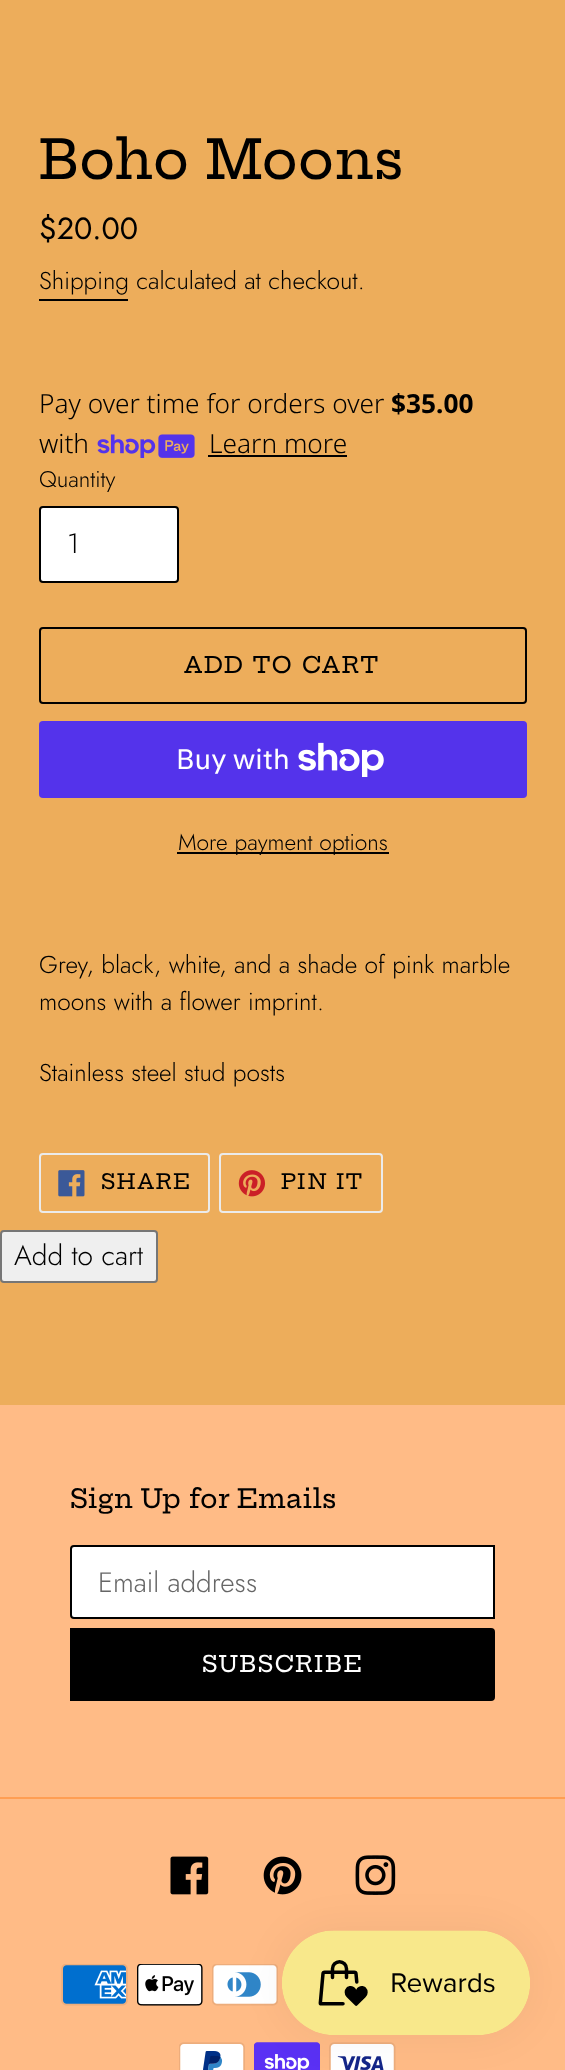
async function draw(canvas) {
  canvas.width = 565;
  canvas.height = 2070;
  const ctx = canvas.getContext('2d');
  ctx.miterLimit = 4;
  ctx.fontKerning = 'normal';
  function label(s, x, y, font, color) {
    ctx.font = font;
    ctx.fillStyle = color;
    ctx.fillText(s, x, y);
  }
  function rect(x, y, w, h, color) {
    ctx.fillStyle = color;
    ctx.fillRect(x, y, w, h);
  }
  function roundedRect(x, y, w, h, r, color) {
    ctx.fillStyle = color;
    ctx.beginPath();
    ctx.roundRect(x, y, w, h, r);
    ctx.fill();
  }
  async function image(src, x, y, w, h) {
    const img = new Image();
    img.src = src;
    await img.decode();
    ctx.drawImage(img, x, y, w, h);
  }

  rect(0, 0, 565, 2070, '#edad5b');
  label('Boho Moons', 39, 179, '500 54.25px Hepta Slab', '#000');
  label('$20.00', 39, 239, '30.5px Jost', '#000');
  label('Shipping calculated at checkout.', 39, 289, '300 24.5px Jost', '#000');
  rect(39, 299, 89, 2, '#000');
  label('Pay over time for orders over', 39, 413, '300 26.25px Noto Sans', '#000');
  label('$35.00', 391, 413, 'bold 26.25px Noto Sans', '#000');
  label('with', 39, 453, '300 26.25px Noto Sans', '#000');
  await image('assets/img1.png', 97, 434, 98, 24);
  label('Learn more', 209, 453, '300 26.25px Noto Sans', '#000');
  rect(208, 455, 139, 2, '#000');
  label('Quantity', 39, 487, '300 22.75px Jost', '#000');
  ctx.fillStyle = '#fff';
  ctx.beginPath();
  ctx.roundRect(40, 507, 138, 75, 3);
  ctx.fill();
  ctx.strokeStyle = '#000';
  ctx.lineWidth = 2;
  ctx.stroke();
  label('1', 67, 553, '300 28px Jost', '#000');
  ctx.beginPath();
  ctx.roundRect(40, 628, 486, 75, 3);
  ctx.stroke();
  ctx.letterSpacing = '1.75px';
  label('ADD TO CART', 184, 673, '500 22.75px Hepta Slab', '#000');
  roundedRect(39, 721, 488, 77, 4, '#5433eb');
  ctx.letterSpacing = '0px';
  label('Buy with', 176, 769, '28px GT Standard', '#fff');
  await image('assets/img2.png', 298, 742, 86, 35);
  rect(177, 852, 212, 2, '#000');
  label('More payment options', 178, 850, '300 22.75px Jost', '#000');
  label('Grey, black, white, and a shade of pink marble', 39, 973, '300 24.5px Jost', '#000');
  label('moons with a flower imprint.', 39, 1010, '300 24.5px Jost', '#000');
  label('Stainless steel stud posts', 39, 1081, '300 24.5px Jost', '#000');
  ctx.beginPath();
  ctx.roundRect(40, 1154, 169, 58, 3);
  ctx.strokeStyle = '#ebebeb';
  ctx.stroke();
  await image('assets/img3.png', 58, 1170, 27, 27);
  ctx.letterSpacing = '1.75px';
  label('SHARE', 101, 1189, '500 21px Hepta Slab', '#000');
  ctx.beginPath();
  ctx.roundRect(220, 1154, 162, 58, 3);
  ctx.stroke();
  await image('assets/img4.png', 238, 1170, 28, 27);
  label('PIN IT', 281, 1189, '500 21px Hepta Slab', '#000');
  ctx.fillStyle = '#efefef';
  ctx.beginPath();
  ctx.roundRect(1, 1231, 156, 51, 3);
  ctx.fill();
  ctx.strokeStyle = '#767676';
  ctx.stroke();
  ctx.letterSpacing = '0px';
  label('Add to cart', 14, 1265, '300 28px Jost', '#000');
  rect(0, 1405, 565, 665, '#ffbb86');
  label('Sign Up for Emails', 70, 1508, '500 26.25px Hepta Slab', '#000');
  ctx.fillStyle = '#fff';
  ctx.beginPath();
  ctx.roundRect(71, 1546, 423, 72, [3, 0, 0, 3]);
  ctx.fill();
  ctx.strokeStyle = '#000';
  ctx.stroke();
  label('Email address', 98, 1592, '300 28px Jost', '#666');
  ctx.fillStyle = '#000';
  ctx.beginPath();
  ctx.roundRect(70, 1628, 425, 73, [0, 4, 4, 0]);
  ctx.fill();
  ctx.letterSpacing = '1.75px';
  label('SUBSCRIBE', 202, 1672, '500 22.75px Hepta Slab', '#fff');
  rect(0, 1797, 565, 2, '#ff9e53');
  await image('assets/img5.png', 170, 1856, 39, 39);
  await image('assets/img6.png', 263, 1856, 39, 39);
  await image('assets/img7.png', 355, 1855, 41, 40);
  await image('assets/img8.png', 61, 1964, 67, 42);
  await image('assets/img9.png', 137, 1964, 66, 42);
  await image('assets/img10.png', 212, 1964, 66, 42);
  await image('assets/img11.png', 179, 2042, 66, 28);
  await image('assets/img12.png', 254, 2042, 66, 28);
  await image('assets/img13.png', 329, 2042, 67, 28);
  ctx.fillStyle = '#0000000d';
  ctx.filter = 'blur(22px)';
  ctx.beginPath();
  ctx.roundRect(282, 1930, 248, 105, 52.5);
  ctx.fill();
  ctx.filter = 'none';
  await image('assets/img14.png', 282, 1930, 248, 105);
}

draw(document.querySelector('canvas'));
